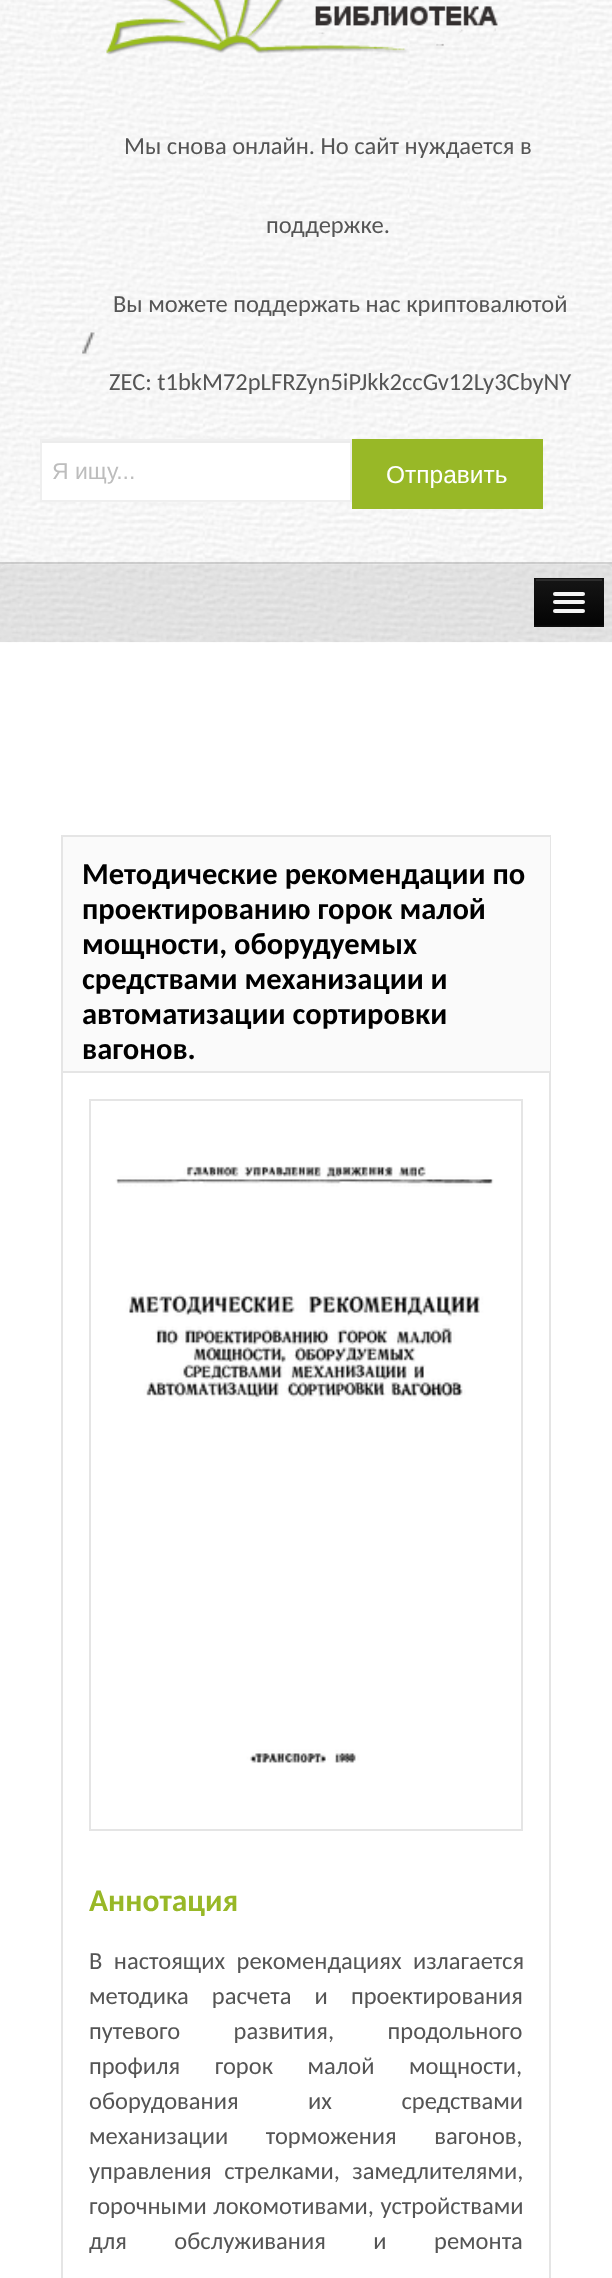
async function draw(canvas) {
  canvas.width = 612;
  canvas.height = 2278;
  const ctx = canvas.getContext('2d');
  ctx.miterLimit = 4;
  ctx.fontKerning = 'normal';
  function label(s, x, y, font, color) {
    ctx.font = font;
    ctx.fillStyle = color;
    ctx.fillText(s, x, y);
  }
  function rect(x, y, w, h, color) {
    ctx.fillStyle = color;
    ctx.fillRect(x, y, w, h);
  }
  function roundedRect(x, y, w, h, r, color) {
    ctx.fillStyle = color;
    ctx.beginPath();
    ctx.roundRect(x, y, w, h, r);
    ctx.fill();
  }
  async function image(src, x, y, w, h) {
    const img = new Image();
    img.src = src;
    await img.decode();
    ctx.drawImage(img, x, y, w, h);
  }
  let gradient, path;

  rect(0, 0, 612, 2278, '#fff');
  await image('assets/img1.png', 0, 0, 612, 643);
  await image('assets/img2.png', 106, 0, 392, 55);
  label('Мы снова онлайн. Но сайт нуждается в', 124, 154, '24.5px Carlito', '#555');
  label('поддержке.', 266, 233, '24.5px Carlito', '#555');
  await image('assets/img3.png', 82, 332, 13, 22);
  label('Вы можете поддержать нас криптовалютой', 113, 312, '24.5px Carlito', '#555');
  label('ZEC: t1bkM72pLFRZyn5iPJkk2ccGv12Ly3CbyNY', 109, 390, '24.5px Carlito', '#555');
  rect(42, 443, 308, 57, '#fff');
  rect(42, 441, 308, 2, '#ececec');
  ctx.strokeStyle = '#efefef';
  ctx.lineWidth = 2;
  ctx.strokeRect(41, 440, 310, 61);
  label('Я ищу...', 52, 479, '23px Liberation Sans', '#bdbdbd');
  rect(352, 439, 191, 70, '#98b827');
  label('Отправить', 386, 483, '24.5px Liberation Sans', '#fff');
  rect(0, 562, 612, 80, '#2524241a');
  rect(0, 562, 612, 2, '#2524241a');
  ctx.fillStyle = '#ffffff33';
  path = new Path2D('M7 565H606C609 565 612 568 612 572V639C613 638 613 636 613 635V571C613 567 610 564 606 564H7C3 564 0 567 0 571V572C0 568 3 565 7 565Z');
  ctx.fill(path);
  rect(534, 578, 70, 49, '#0e0e0e');
  gradient = ctx.createLinearGradient(569, 579, 569, 625);
  gradient.addColorStop(0, '#151515');
  gradient.addColorStop(1, '#040404');
  ctx.fillStyle = gradient;
  ctx.fillRect(534, 579, 70, 46);
  rect(536, 579, 66, 2, '#2c2c2c');
  ctx.fillStyle = '#0a0a0a';
  path = new Path2D('M604 626H534L536 625H602Z');
  ctx.fill(path);
  ctx.fillStyle = '#0b0b0b';
  path = new Path2D('M553 594C551.5 598 559 597 559.5 597H578.5C579.5 597 584.5 598 585 595.5C585 595 585 594 584.5 593.5C584.5 594.5 583.5 595 583 595H555C554 595 553.5 594.5 553 594Z');
  ctx.fill(path);
  roundedRect(553, 592, 32, 4, 2, '#f5f5f5');
  ctx.fillStyle = '#090909';
  path = new Path2D('M553.5 603C551 607 559 606 559.5 606H569C571.5 606 583 606.5 584.5 605.5C585 604.5 585 603.5 584.5 602.5L583.5 603.5H554.5Z');
  ctx.fill(path);
  roundedRect(553, 600, 32, 4, 2, '#f5f5f5');
  roundedRect(553, 609, 32, 4, 2, '#f5f5f5');
  ctx.strokeStyle = '#e5e5e5';
  ctx.strokeRect(62, 836, 488, 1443);
  rect(63, 837, 487, 234, '#fafafa');
  rect(63, 1071, 487, 2, '#e5e5e5');
  label('Методические рекомендации по', 82, 884, 'bold 30.6px Carlito', '#000');
  label('проектированию горок малой', 82, 919, 'bold 30.6px Carlito', '#000');
  label('мощности, оборудуемых', 82, 954, 'bold 30.6px Carlito', '#000');
  label('средствами механизации и', 82, 989, 'bold 30.6px Carlito', '#000');
  label('автоматизации сортировки', 82, 1024, 'bold 30.6px Carlito', '#000');
  label('вагонов.', 82, 1059, 'bold 30.6px Carlito', '#000');
  ctx.strokeRect(90, 1100, 432, 730);
  await image('assets/img4.png', 115, 1166, 379, 598);
  label('Аннотация', 89, 1911, 'bold 31.5px Carlito', '#98b827');
  ctx.wordSpacing = '6px';
  label('В настоящих рекомендациях излагается', 89, 1969, '24.5px Carlito', '#555');
  ctx.wordSpacing = '17.5px';
  label('методика расчета и проектирования', 89, 2004, '24.5px Carlito', '#555');
  ctx.wordSpacing = '48px';
  label('путевого развития, продольного', 89, 2039, '24.5px Carlito', '#555');
  ctx.wordSpacing = '29px';
  label('профиля горок малой мощности,', 89, 2074, '24.5px Carlito', '#555');
  ctx.wordSpacing = '64px';
  label('оборудования их средствами', 89, 2109, '24.5px Carlito', '#555');
  ctx.wordSpacing = '32px';
  label('механизации торможения вагонов,', 89, 2144, '24.5px Carlito', '#555');
  ctx.wordSpacing = '7px';
  label('управления стрелками, замедлителями,', 89, 2179, '24.5px Carlito', '#555');
  ctx.wordSpacing = '1px';
  label('горочными локомотивами, устройствами', 89, 2214, '24.5px Carlito', '#555');
  ctx.wordSpacing = '42px';
  label('для обслуживания и ремонта', 89, 2249, '24.5px Carlito', '#555');
}

draw(document.querySelector('canvas'));
